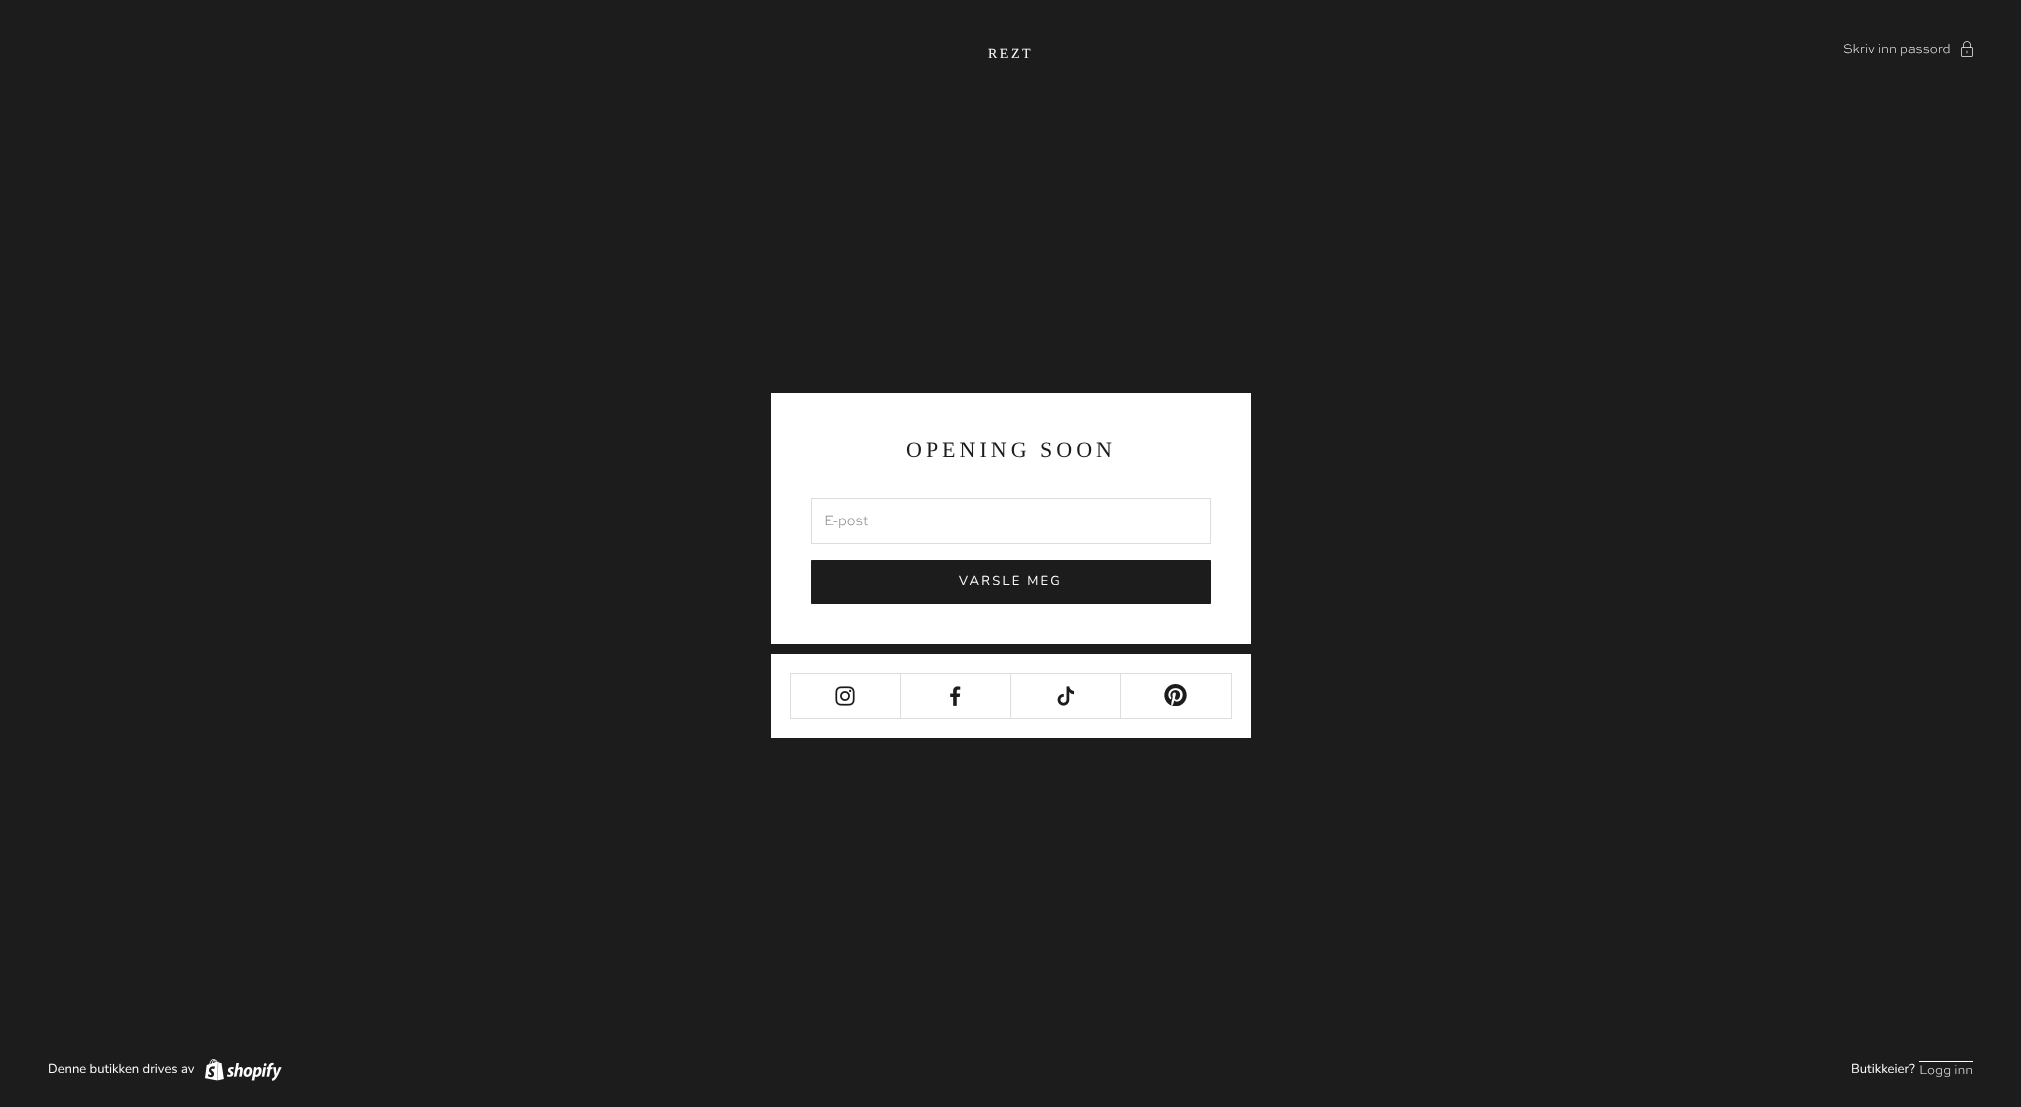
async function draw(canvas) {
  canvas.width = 2021;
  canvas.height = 1107;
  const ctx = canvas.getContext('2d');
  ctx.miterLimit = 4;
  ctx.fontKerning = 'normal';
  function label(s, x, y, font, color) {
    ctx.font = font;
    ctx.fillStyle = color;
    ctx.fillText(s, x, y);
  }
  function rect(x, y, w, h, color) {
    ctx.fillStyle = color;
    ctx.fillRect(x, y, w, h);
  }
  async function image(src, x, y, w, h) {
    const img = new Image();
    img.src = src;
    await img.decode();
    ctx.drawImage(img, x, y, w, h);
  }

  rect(0, 0, 2021, 1107, '#1c1c1c');
  ctx.letterSpacing = '2.5px';
  label('REZT', 988, 58, '14px Liberation Serif', '#fff');
  ctx.letterSpacing = '0px';
  label('Skriv inn passord', 1843, 53, '300 13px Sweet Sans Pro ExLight', '#fff');
  await image('assets/img1.png', 1961, 41, 12, 16);
  rect(771, 393, 480, 251, '#fff');
  ctx.letterSpacing = '4px';
  label('OPENING SOON', 906, 457, '22px Liberation Serif', '#1c1c1c');
  ctx.strokeStyle = '#ddd';
  ctx.strokeRect(811.5, 498.5, 399, 45);
  ctx.letterSpacing = '0px';
  label('E-post', 824, 525, '300 14px Sweet Sans Pro ExLight', '#777');
  ctx.fillStyle = '#1c1c1c';
  ctx.beginPath();
  ctx.rect(811.5, 560.5, 399, 43);
  ctx.fill();
  ctx.strokeStyle = '#1c1c1c';
  ctx.stroke();
  ctx.letterSpacing = '2.25px';
  label('VARSLE MEG', 959, 585, '13px Nunito', '#fff');
  rect(771, 654, 480, 84, '#fff');
  ctx.strokeStyle = '#ddd';
  ctx.strokeRect(790.5, 673.5, 110, 45);
  await image('assets/img2.png', 835, 686, 20, 20);
  ctx.strokeRect(900.5, 673.5, 110, 45);
  await image('assets/img3.png', 950, 686, 11, 20);
  ctx.strokeRect(1010.5, 673.5, 110, 45);
  await image('assets/img4.png', 1057, 686, 18, 20);
  ctx.strokeRect(1120.5, 673.5, 111, 45);
  await image('assets/img5.png', 1164, 684, 23, 22);
  ctx.letterSpacing = '0px';
  label('Denne butikken drives av', 48, 1073, '13px Nunito', '#fff');
  await image('assets/img6.png', 205, 1059, 77, 22);
  label('Butikkeier?', 1851, 1073, '13px Nunito', '#fff');
  label('Logg inn', 1919, 1074, '300 13px Sweet Sans Pro ExLight', '#fff');
  rect(1919, 1061, 54, 1, '#fff');
}

draw(document.querySelector('canvas'));
